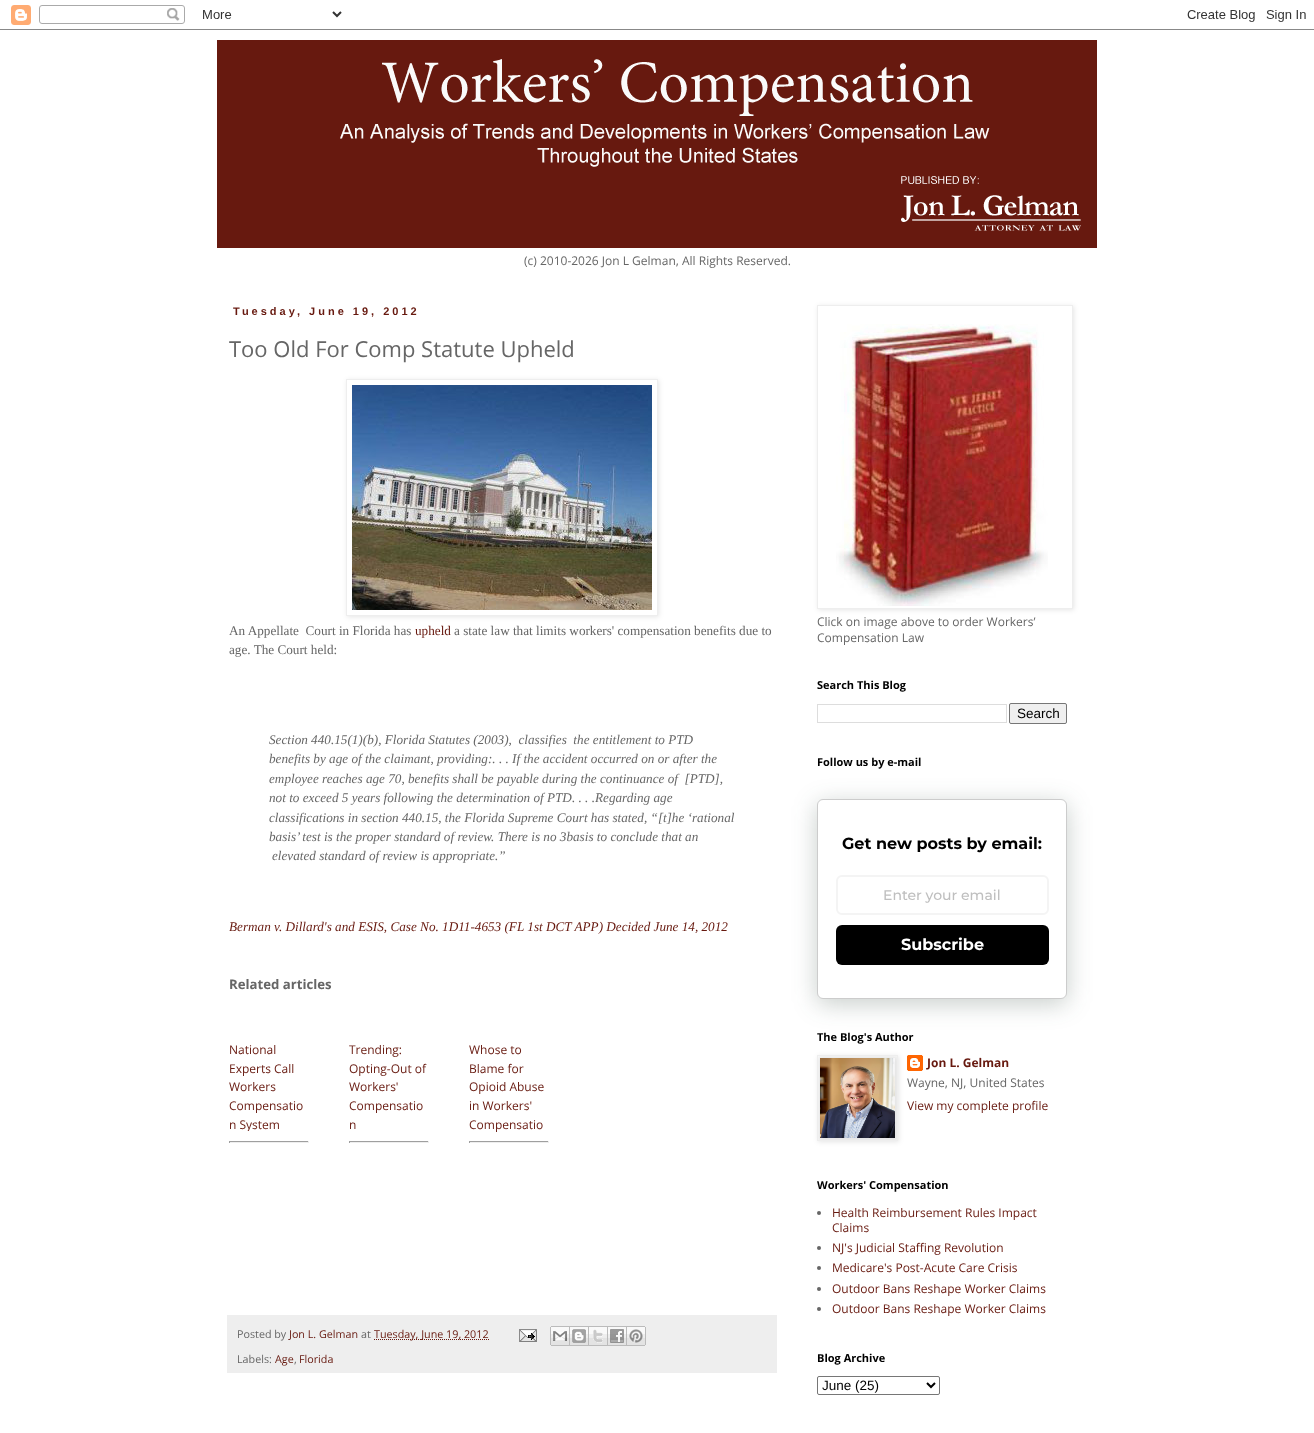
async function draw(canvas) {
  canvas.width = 1314;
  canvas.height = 1433;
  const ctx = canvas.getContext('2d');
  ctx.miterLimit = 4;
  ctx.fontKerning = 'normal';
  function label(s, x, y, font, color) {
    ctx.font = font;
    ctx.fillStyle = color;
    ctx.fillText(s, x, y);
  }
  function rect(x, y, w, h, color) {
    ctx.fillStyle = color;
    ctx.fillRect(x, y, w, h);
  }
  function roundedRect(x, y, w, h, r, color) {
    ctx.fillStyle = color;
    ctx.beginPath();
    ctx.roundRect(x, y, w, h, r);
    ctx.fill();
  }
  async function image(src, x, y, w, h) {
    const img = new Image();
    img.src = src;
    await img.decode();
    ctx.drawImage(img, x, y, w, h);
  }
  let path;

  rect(0, 0, 1314, 1433, '#fff');
  await image('assets/img1.png', 0, 5, 1314, 25);
  rect(217, 40, 880, 208, '#67190f');
  await image('assets/img2.png', 340, 59, 741, 172);
  label('(c) 2010-2026 Jon L Gelman, All Rights Reserved.', 524, 265, '12px Open Sans', '#666');
  ctx.letterSpacing = '3px';
  label('Tuesday, June 19, 2012', 233, 315, 'bold 11px Liberation Sans', '#67190f');
  ctx.letterSpacing = '0px';
  label('Too Old For Comp Statute Upheld', 229, 357, '22px Open Sans', '#666');
  ctx.save();
  path = new Path2D('M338 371H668V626H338ZM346 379H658V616H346Z');
  ctx.clip(path, 'evenodd');
  ctx.fillStyle = '#0000001a';
  ctx.filter = 'blur(2.5px)';
  ctx.beginPath();
  ctx.rect(347, 380, 312, 237);
  ctx.fill();
  ctx.filter = 'none';
  ctx.restore();
  ctx.strokeStyle = '#eee';
  ctx.strokeRect(346.5, 379.5, 311, 236);
  await image('assets/img3.png', 352, 385, 300, 225);
  label('An Appellate  Court in Florida has', 229, 635, '13.2px Liberation Serif', '#666');
  label('upheld', 415, 635, '13.2px Liberation Serif', '#67190f');
  label('a state law that limits workers\' compensation benefits due to', 454, 635, '13.2px Liberation Serif', '#666');
  label('age. The Court held:', 229, 654, '13.2px Liberation Serif', '#666');
  label('Section 440.15(1)(b), Florida Statutes (2003),  classifies  the entitlement to PTD', 269, 744, 'italic 13.2px Liberation Serif', '#666');
  label('benefits by age of the claimant, providing:. . . If the accident occurred on or after the', 269, 763, 'italic 13.2px Liberation Serif', '#666');
  label('employee reaches age 70, benefits shall be payable during the continuance of  [PTD],', 269, 783, 'italic 13.2px Liberation Serif', '#666');
  label('not to exceed 5 years following the determination of PTD. . . .Regarding age', 269, 802, 'italic 13.2px Liberation Serif', '#666');
  label('classifications in section 440.15, the Florida Supreme Court has stated, “[t]he ‘rational', 269, 822, 'italic 13.2px Liberation Serif', '#666');
  label('basis’ test is the proper standard of review. There is no 3basis to conclude that an', 269, 841, 'italic 13.2px Liberation Serif', '#666');
  label('elevated standard of review is appropriate.”', 272, 860, 'italic 13.2px Liberation Serif', '#666');
  label('Berman v. Dillard\'s and ESIS, Case No. 1D11-4653 (FL 1st DCT APP) Decided June 14, 2012', 229, 931, 'italic 13.2px Liberation Serif', '#67190f');
  label('Related articles', 229, 989, 'bold 13.2px Open Sans', '#666');
  label('National', 229, 1054, '12px Open Sans', '#67190f');
  label('Experts Call', 229, 1073, '12px Open Sans', '#67190f');
  label('Workers', 229, 1091, '12px Open Sans', '#67190f');
  label('Compensatio', 229, 1110, '12px Open Sans', '#67190f');
  ctx.save();
  ctx.beginPath();
  ctx.rect(229, 1041, 80, 90);
  ctx.clip();
  label('n System', 229, 1129, '12px Open Sans', '#67190f');
  ctx.restore();
  rect(229, 1141, 80, 1, '#9f9f9f');
  rect(308, 1141, 1, 2, '#eee');
  rect(229, 1142, 80, 1, '#eee');
  rect(229, 1141, 1, 2, '#9f9f9f');
  label('Trending:', 349, 1054, '12px Open Sans', '#67190f');
  label('Opting-Out of', 349, 1073, '12px Open Sans', '#67190f');
  label('Workers\'', 349, 1091, '12px Open Sans', '#67190f');
  label('Compensatio', 349, 1110, '12px Open Sans', '#67190f');
  label('n', 349, 1129, '12px Open Sans', '#67190f');
  rect(349, 1141, 80, 1, '#9f9f9f');
  rect(428, 1141, 1, 2, '#eee');
  rect(349, 1142, 80, 1, '#eee');
  rect(349, 1141, 1, 2, '#9f9f9f');
  label('Whose to', 469, 1054, '12px Open Sans', '#67190f');
  label('Blame for', 469, 1073, '12px Open Sans', '#67190f');
  label('Opioid Abuse', 469, 1091, '12px Open Sans', '#67190f');
  label('in Workers\'', 469, 1110, '12px Open Sans', '#67190f');
  label('Compensatio', 469, 1129, '12px Open Sans', '#67190f');
  rect(469, 1141, 80, 1, '#9f9f9f');
  rect(548, 1141, 1, 2, '#eee');
  rect(469, 1142, 80, 1, '#eee');
  rect(469, 1141, 1, 2, '#9f9f9f');
  rect(227, 1315, 550, 58, '#eee');
  label('Posted by', 237, 1338, '10.75px Open Sans', '#666');
  label('Jon L. Gelman', 289, 1338, '10.75px Open Sans', '#67190f');
  label('at', 361, 1338, '10.75px Open Sans', '#666');
  path = new Path2D('M374 1339.5H489');
  ctx.strokeStyle = '#67190f';
  ctx.setLineDash([1, 1]);
  ctx.stroke(path);
  label('Tuesday, June 19, 2012', 374, 1338, '10.75px Open Sans', '#67190f');
  await image('assets/img4.png', 519, 1329, 18, 13);
  await image('assets/img5.png', 550, 1326, 20, 20);
  await image('assets/img6.png', 570, 1326, 19, 20);
  await image('assets/img7.png', 589, 1326, 19, 20);
  await image('assets/img8.png', 608, 1326, 19, 20);
  await image('assets/img9.png', 627, 1326, 19, 20);
  label('Labels:', 237, 1363, '10.75px Open Sans', '#666');
  label('Age', 275, 1363, '10.75px Open Sans', '#67190f');
  label(',', 294, 1363, '10.75px Open Sans', '#666');
  label('Florida', 299, 1363, '10.75px Open Sans', '#67190f');
  ctx.save();
  path = new Path2D('M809 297H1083V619H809ZM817 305H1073V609H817Z');
  ctx.clip(path, 'evenodd');
  ctx.fillStyle = '#0000001a';
  ctx.filter = 'blur(2.5px)';
  ctx.beginPath();
  ctx.rect(818, 306, 256, 304);
  ctx.fill();
  ctx.filter = 'none';
  ctx.restore();
  ctx.strokeStyle = '#eee';
  ctx.setLineDash([]);
  ctx.strokeRect(817.5, 305.5, 255, 303);
  await image('assets/img10.png', 836, 324, 212, 282);
  label('Click on image above to order Workers’', 817, 626, '12px Open Sans', '#666');
  label('Compensation Law', 817, 642, '12px Open Sans', '#666');
  label('Search This Blog', 817, 689, 'bold 11px Open Sans', '#000');
  ctx.strokeStyle = '#ddd';
  ctx.strokeRect(817.5, 704.5, 189, 18);
  ctx.fillStyle = '#efefef';
  ctx.beginPath();
  ctx.roundRect(1009.5, 703.5, 57, 20, 1.5);
  ctx.fill();
  ctx.strokeStyle = '#767676';
  ctx.stroke();
  label('Search', 1017, 718, '13.5px Liberation Sans', '#000');
  label('Follow us by e-mail', 817, 766, 'bold 11px Open Sans', '#000');
  ctx.fillStyle = '#223c2f40';
  ctx.filter = 'blur(12.5px)';
  ctx.beginPath();
  ctx.roundRect(817, 804, 250, 200, 6);
  ctx.fill();
  ctx.filter = 'none';
  ctx.fillStyle = '#fff';
  ctx.beginPath();
  ctx.roundRect(817.5, 799.5, 249, 199, 5.5);
  ctx.fill();
  ctx.strokeStyle = '#ccc';
  ctx.stroke();
  label('Get new posts by email:', 842, 849, 'bold 16px Montserrat', '#000');
  ctx.beginPath();
  ctx.roundRect(837, 876, 211, 38, 5);
  ctx.strokeStyle = '#f4f4f4';
  ctx.lineWidth = 2;
  ctx.stroke();
  label('Enter your email', 883, 900, '500 14px Montserrat', '#bfbfbf');
  roundedRect(836, 925, 213, 40, 6, '#000');
  label('Subscribe', 901, 950, 'bold 16px Montserrat', '#fff');
  label('The Blog\'s Author', 817, 1041, 'bold 11px Open Sans', '#000');
  await image('assets/img12.png', 907, 1055, 16, 16);
  ctx.fillStyle = '#0000001a';
  ctx.filter = 'blur(2.5px)';
  ctx.beginPath();
  ctx.rect(818, 1056, 81, 86);
  ctx.fill();
  ctx.filter = 'none';
  ctx.strokeStyle = '#eee';
  ctx.lineWidth = 1;
  ctx.strokeRect(817.5, 1055.5, 80, 85);
  await image('assets/img11.png', 820, 1058, 75, 80);
  label('Jon L. Gelman', 927, 1067, 'bold 12px Open Sans', '#67190f');
  label('Wayne, NJ, United States', 907, 1087, '12px Open Sans', '#666');
  label('View my complete profile', 907, 1110, '12px Open Sans', '#67190f');
  label('Workers\' Compensation', 817, 1189, 'bold 11px Open Sans', '#000');
  ctx.fillStyle = '#666';
  ctx.beginPath();
  ctx.arc(819, 1213, 2, 0, 2 * Math.PI);
  ctx.fill();
  label('Health Reimbursement Rules Impact', 832, 1217, '12px Open Sans', '#67190f');
  label('Claims', 832, 1232, '12px Open Sans', '#67190f');
  ctx.fillStyle = '#666';
  ctx.beginPath();
  ctx.arc(819, 1248, 2, 0, 2 * Math.PI);
  ctx.fill();
  label('NJ\'s Judicial Staffing Revolution', 832, 1252, '12px Open Sans', '#67190f');
  ctx.fillStyle = '#666';
  ctx.beginPath();
  ctx.arc(819, 1268, 2, 0, 2 * Math.PI);
  ctx.fill();
  label('Medicare\'s Post-Acute Care Crisis', 832, 1272, '12px Open Sans', '#67190f');
  ctx.fillStyle = '#666';
  ctx.beginPath();
  ctx.arc(819, 1289, 2, 0, 2 * Math.PI);
  ctx.fill();
  label('Outdoor Bans Reshape Worker Claims', 832, 1293, '12px Open Sans', '#67190f');
  ctx.fillStyle = '#666';
  ctx.beginPath();
  ctx.arc(819, 1309, 2, 0, 2 * Math.PI);
  ctx.fill();
  label('Outdoor Bans Reshape Worker Claims', 832, 1313, '12px Open Sans', '#67190f');
  label('Blog Archive', 817, 1362, 'bold 11px Open Sans', '#000');
  ctx.beginPath();
  ctx.roundRect(817.5, 1376.5, 122, 18, 1.5);
  ctx.strokeStyle = '#767676';
  ctx.stroke();
  path = new Path2D('M927 1383L931 1387L935 1383');
  ctx.strokeStyle = '#000';
  ctx.lineWidth = 2;
  ctx.stroke(path);
  label('June (25)', 822, 1390, '13.5px Liberation Sans', '#000');
}

draw(document.querySelector('canvas'));
